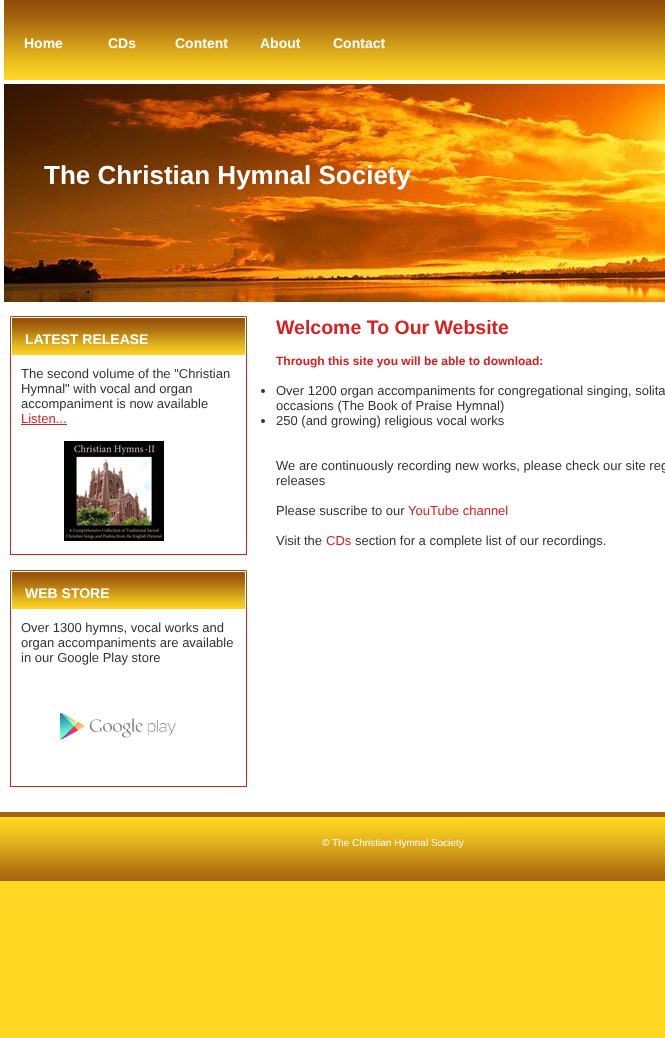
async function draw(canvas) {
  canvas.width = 665;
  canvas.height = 1038;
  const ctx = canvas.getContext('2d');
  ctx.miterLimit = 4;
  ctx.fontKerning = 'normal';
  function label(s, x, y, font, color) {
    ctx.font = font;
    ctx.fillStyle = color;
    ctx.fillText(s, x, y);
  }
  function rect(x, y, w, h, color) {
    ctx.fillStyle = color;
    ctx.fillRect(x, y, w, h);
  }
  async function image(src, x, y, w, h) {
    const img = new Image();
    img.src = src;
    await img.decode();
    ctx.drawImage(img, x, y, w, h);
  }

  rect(0, 0, 665, 1038, '#ffd723');
  rect(0, 80, 665, 732, '#fff');
  await image('assets/img1.png', 4, 0, 661, 80);
  rect(0, 0, 4, 80, '#fff');
  label('Home', 24, 48, 'bold 14px Liberation Sans', '#fff');
  label('CDs', 108, 48, 'bold 14px Liberation Sans', '#fff');
  label('Content', 175, 48, 'bold 14px Liberation Sans', '#fff');
  label('About', 260, 48, 'bold 14px Liberation Sans', '#fff');
  label('Contact', 333, 48, 'bold 14px Liberation Sans', '#fff');
  await image('assets/img2.png', 4, 80, 661, 224);
  label('The Christian Hymnal Society', 44, 184, 'bold 26px Liberation Sans', '#fff');
  await image('assets/img3.png', 10, 316, 237, 40);
  label('LATEST RELEASE', 25, 344, 'bold 14px Liberation Sans', '#fff');
  rect(246, 356, 1, 199, '#d72020');
  rect(10, 554, 237, 1, '#d72020');
  rect(10, 356, 1, 199, '#d72020');
  label('The second volume of the "Christian', 21, 378, '13px Liberation Sans', '#333');
  label('Hymnal" with vocal and organ', 21, 393, '13px Liberation Sans', '#333');
  label('accompaniment is now available', 21, 408, '13px Liberation Sans', '#333');
  label('Listen...', 21, 423, '13px Liberation Sans', '#d72020');
  rect(21, 424, 46, 1, '#d72020');
  await image('assets/img4.png', 64, 441, 100, 100);
  await image('assets/img3.png', 10, 570, 237, 40);
  label('WEB STORE', 25, 598, 'bold 14px Liberation Sans', '#fff');
  rect(246, 610, 1, 177, '#d72020');
  rect(10, 786, 237, 1, '#d72020');
  rect(10, 610, 1, 177, '#d72020');
  label('Over 1300 hymns, vocal works and', 21, 632, '13px Liberation Sans', '#333');
  label('organ accompaniments are available', 21, 647, '13px Liberation Sans', '#333');
  label('in our Google Play store', 21, 662, '13px Liberation Sans', '#333');
  await image('assets/img5.png', 60, 712, 116, 28);
  label('Welcome To Our Website', 276, 334, 'bold 19.5px Liberation Sans', '#d72020');
  label('Through this site you will be able to download:', 276, 365, 'bold 12px Liberation Sans', '#d72020');
  ctx.fillStyle = '#333';
  ctx.beginPath();
  ctx.arc(263, 391, 2, 0, 2 * Math.PI);
  ctx.fill();
  label('Over 1200 organ accompaniments for congregational singing, solita', 276, 395, '13px Liberation Sans', '#333');
  label('occasions (The Book of Praise Hymnal)', 276, 410, '13px Liberation Sans', '#333');
  ctx.beginPath();
  ctx.arc(263, 421, 2, 0, 2 * Math.PI);
  ctx.fill();
  label('250 (and growing) religious vocal works', 276, 425, '13px Liberation Sans', '#333');
  label('We are continuously recording new works, please check our site reg', 276, 470, '13px Liberation Sans', '#333');
  label('releases', 276, 485, '13px Liberation Sans', '#333');
  label('Please suscribe to our', 276, 515, '13px Liberation Sans', '#333');
  label('YouTube channel', 408, 515, '13px Liberation Sans', '#d72020');
  label('Visit the', 276, 545, '13px Liberation Sans', '#333');
  label('CDs', 326, 545, '13px Liberation Sans', '#d72020');
  label('section for a complete list of our recordings.', 355, 545, '13px Liberation Sans', '#333');
  await image('assets/img6.png', 0, 817, 665, 64);
  rect(0, 812, 665, 5, '#a6640e');
  label('© The Christian Hymnal Society', 322, 846, '10px Liberation Sans', '#fff');
}

draw(document.querySelector('canvas'));
